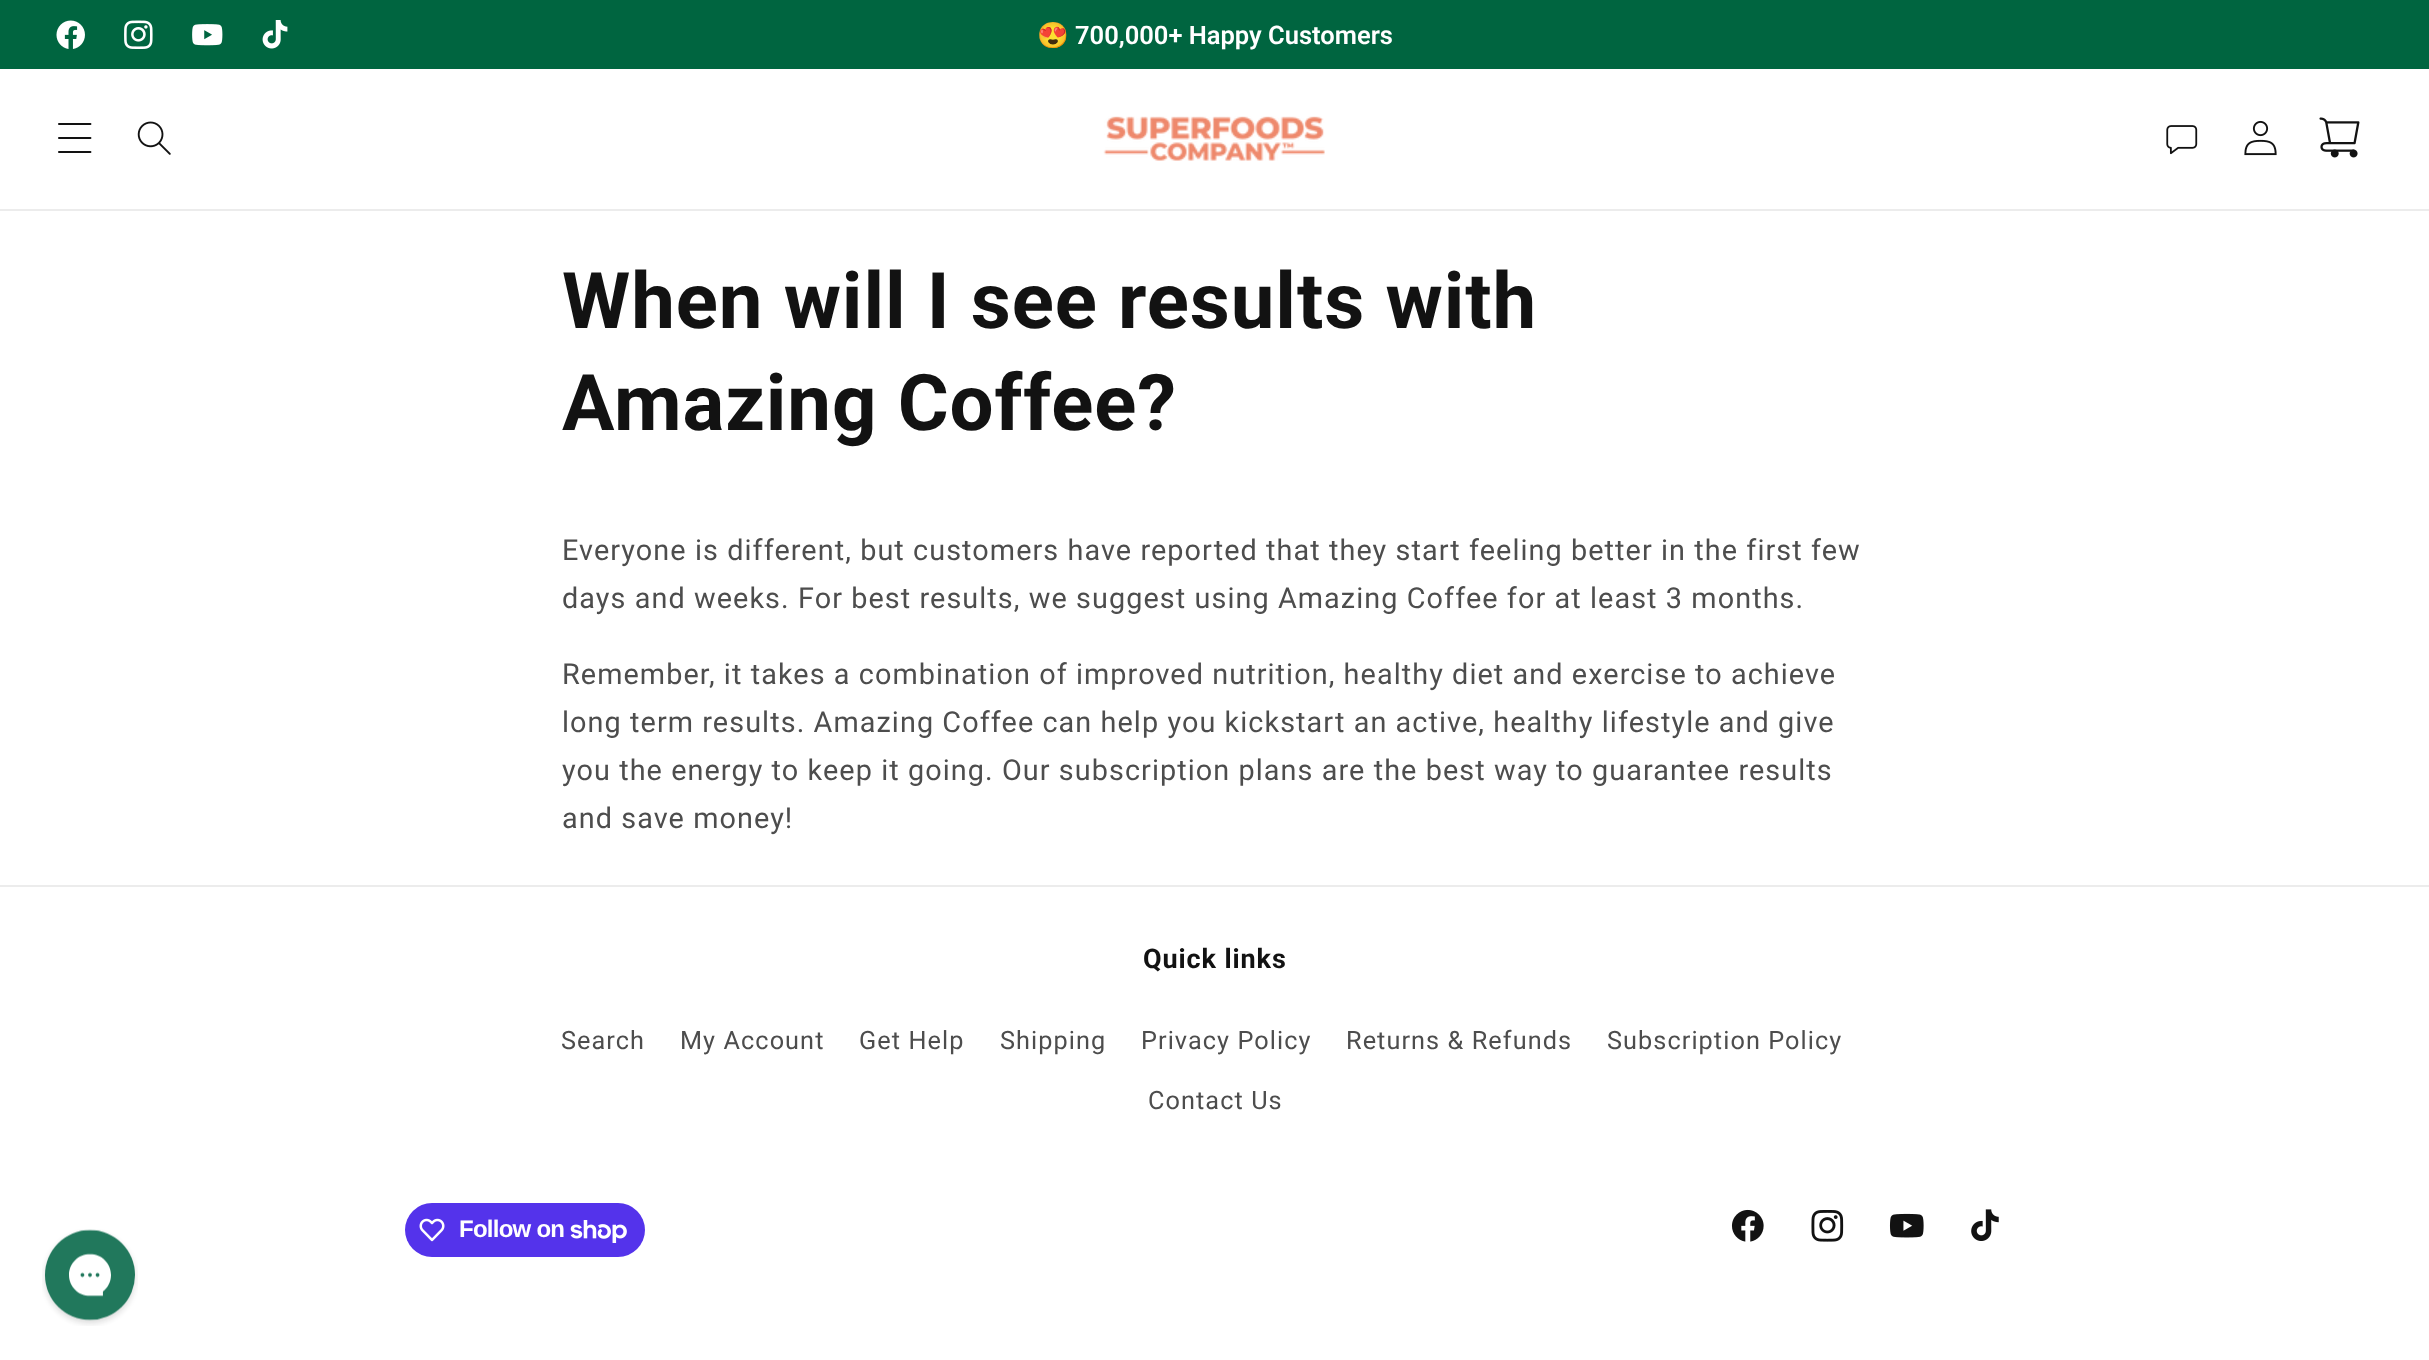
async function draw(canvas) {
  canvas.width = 2429;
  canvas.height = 1360;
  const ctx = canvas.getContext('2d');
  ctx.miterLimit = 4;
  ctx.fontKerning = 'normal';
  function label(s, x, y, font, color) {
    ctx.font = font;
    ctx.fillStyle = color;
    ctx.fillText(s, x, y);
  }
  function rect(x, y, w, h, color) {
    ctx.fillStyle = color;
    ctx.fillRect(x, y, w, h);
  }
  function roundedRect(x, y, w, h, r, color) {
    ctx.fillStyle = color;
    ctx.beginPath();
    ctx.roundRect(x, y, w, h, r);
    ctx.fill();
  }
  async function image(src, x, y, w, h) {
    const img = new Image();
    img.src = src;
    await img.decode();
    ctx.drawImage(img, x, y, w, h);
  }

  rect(0, 0, 2429, 1360, '#fff');
  rect(0, 0, 2429, 69, '#006540');
  await image('assets/img1.png', 56, 20, 29, 29);
  await image('assets/img2.png', 124, 20, 29, 29);
  await image('assets/img3.png', 192, 24, 31, 22);
  await image('assets/img4.png', 262, 20, 26, 29);
  label('😍', 1037, 44, '25.5px Noto Color Emoji', '#fff');
  label('700,000+ Happy Customers', 1075, 44, '600 25.5px Roboto', '#fff');
  rect(0, 209, 2429, 2, '#ececec');
  await image('assets/img5.png', 58, 123, 34, 30);
  await image('assets/img6.png', 137, 121, 34, 34);
  await image('assets/img7.png', 1103, 116, 222, 45);
  await image('assets/img8.png', 2166, 125, 32, 30);
  await image('assets/img9.png', 2244, 120, 33, 36);
  await image('assets/img10.png', 2319, 117, 41, 41);
  ctx.letterSpacing = '0.9px';
  label('When will I see results with', 562, 328, 'bold 78px Roboto', '#121212');
  label('Amazing Coffee?', 562, 430, 'bold 78px Roboto', '#121212');
  ctx.letterSpacing = '1.08px';
  label('Everyone is different, but customers have reported that they start feeling better in the first few', 562, 560, '28.8px Roboto', '#4d4d4d');
  label('days and weeks. For best results, we suggest using Amazing Coffee for at least 3 months.', 562, 608, '28.8px Roboto', '#4d4d4d');
  label('Remember, it takes a combination of improved nutrition, healthy diet and exercise to achieve', 562, 684, '28.8px Roboto', '#4d4d4d');
  label('long term results. Amazing Coffee can help you kickstart an active, healthy lifestyle and give', 562, 732, '28.8px Roboto', '#4d4d4d');
  label('you the energy to keep it going. Our subscription plans are the best way to guarantee results', 562, 780, '28.8px Roboto', '#4d4d4d');
  label('and save money!', 562, 828, '28.8px Roboto', '#4d4d4d');
  rect(0, 885, 2429, 2, '#ececec');
  ctx.letterSpacing = '0.9px';
  label('Quick links', 1143, 968, 'bold 27px Roboto', '#121212');
  ctx.letterSpacing = '1.08px';
  label('Search', 561, 1049, '25.25px Roboto', '#4d4d4d');
  label('My Account', 680, 1049, '25.25px Roboto', '#4d4d4d');
  label('Get Help', 859, 1049, '25.25px Roboto', '#4d4d4d');
  label('Shipping', 1000, 1049, '25.25px Roboto', '#4d4d4d');
  label('Privacy Policy', 1141, 1049, '25.25px Roboto', '#4d4d4d');
  label('Returns & Refunds', 1346, 1049, '25.25px Roboto', '#4d4d4d');
  label('Subscription Policy', 1607, 1049, '25.25px Roboto', '#4d4d4d');
  label('Contact Us', 1148, 1109, '25.25px Roboto', '#4d4d4d');
  roundedRect(405, 1203, 240, 54, 27, '#5433eb');
  await image('assets/img11.png', 419, 1218, 26, 24);
  ctx.letterSpacing = '-0.75px';
  label('Follow on', 459, 1237, 'bold 24px Liberation Sans', '#fff');
  await image('assets/img12.png', 570, 1220, 57, 23);
  await image('assets/img13.png', 1731, 1209, 33, 33);
  await image('assets/img14.png', 1811, 1210, 33, 32);
  await image('assets/img15.png', 1889, 1213, 35, 25);
  await image('assets/img16.png', 1971, 1209, 28, 32);
  await image('assets/img17.png', 42, 1229, 96, 97);
}

draw(document.querySelector('canvas'));
